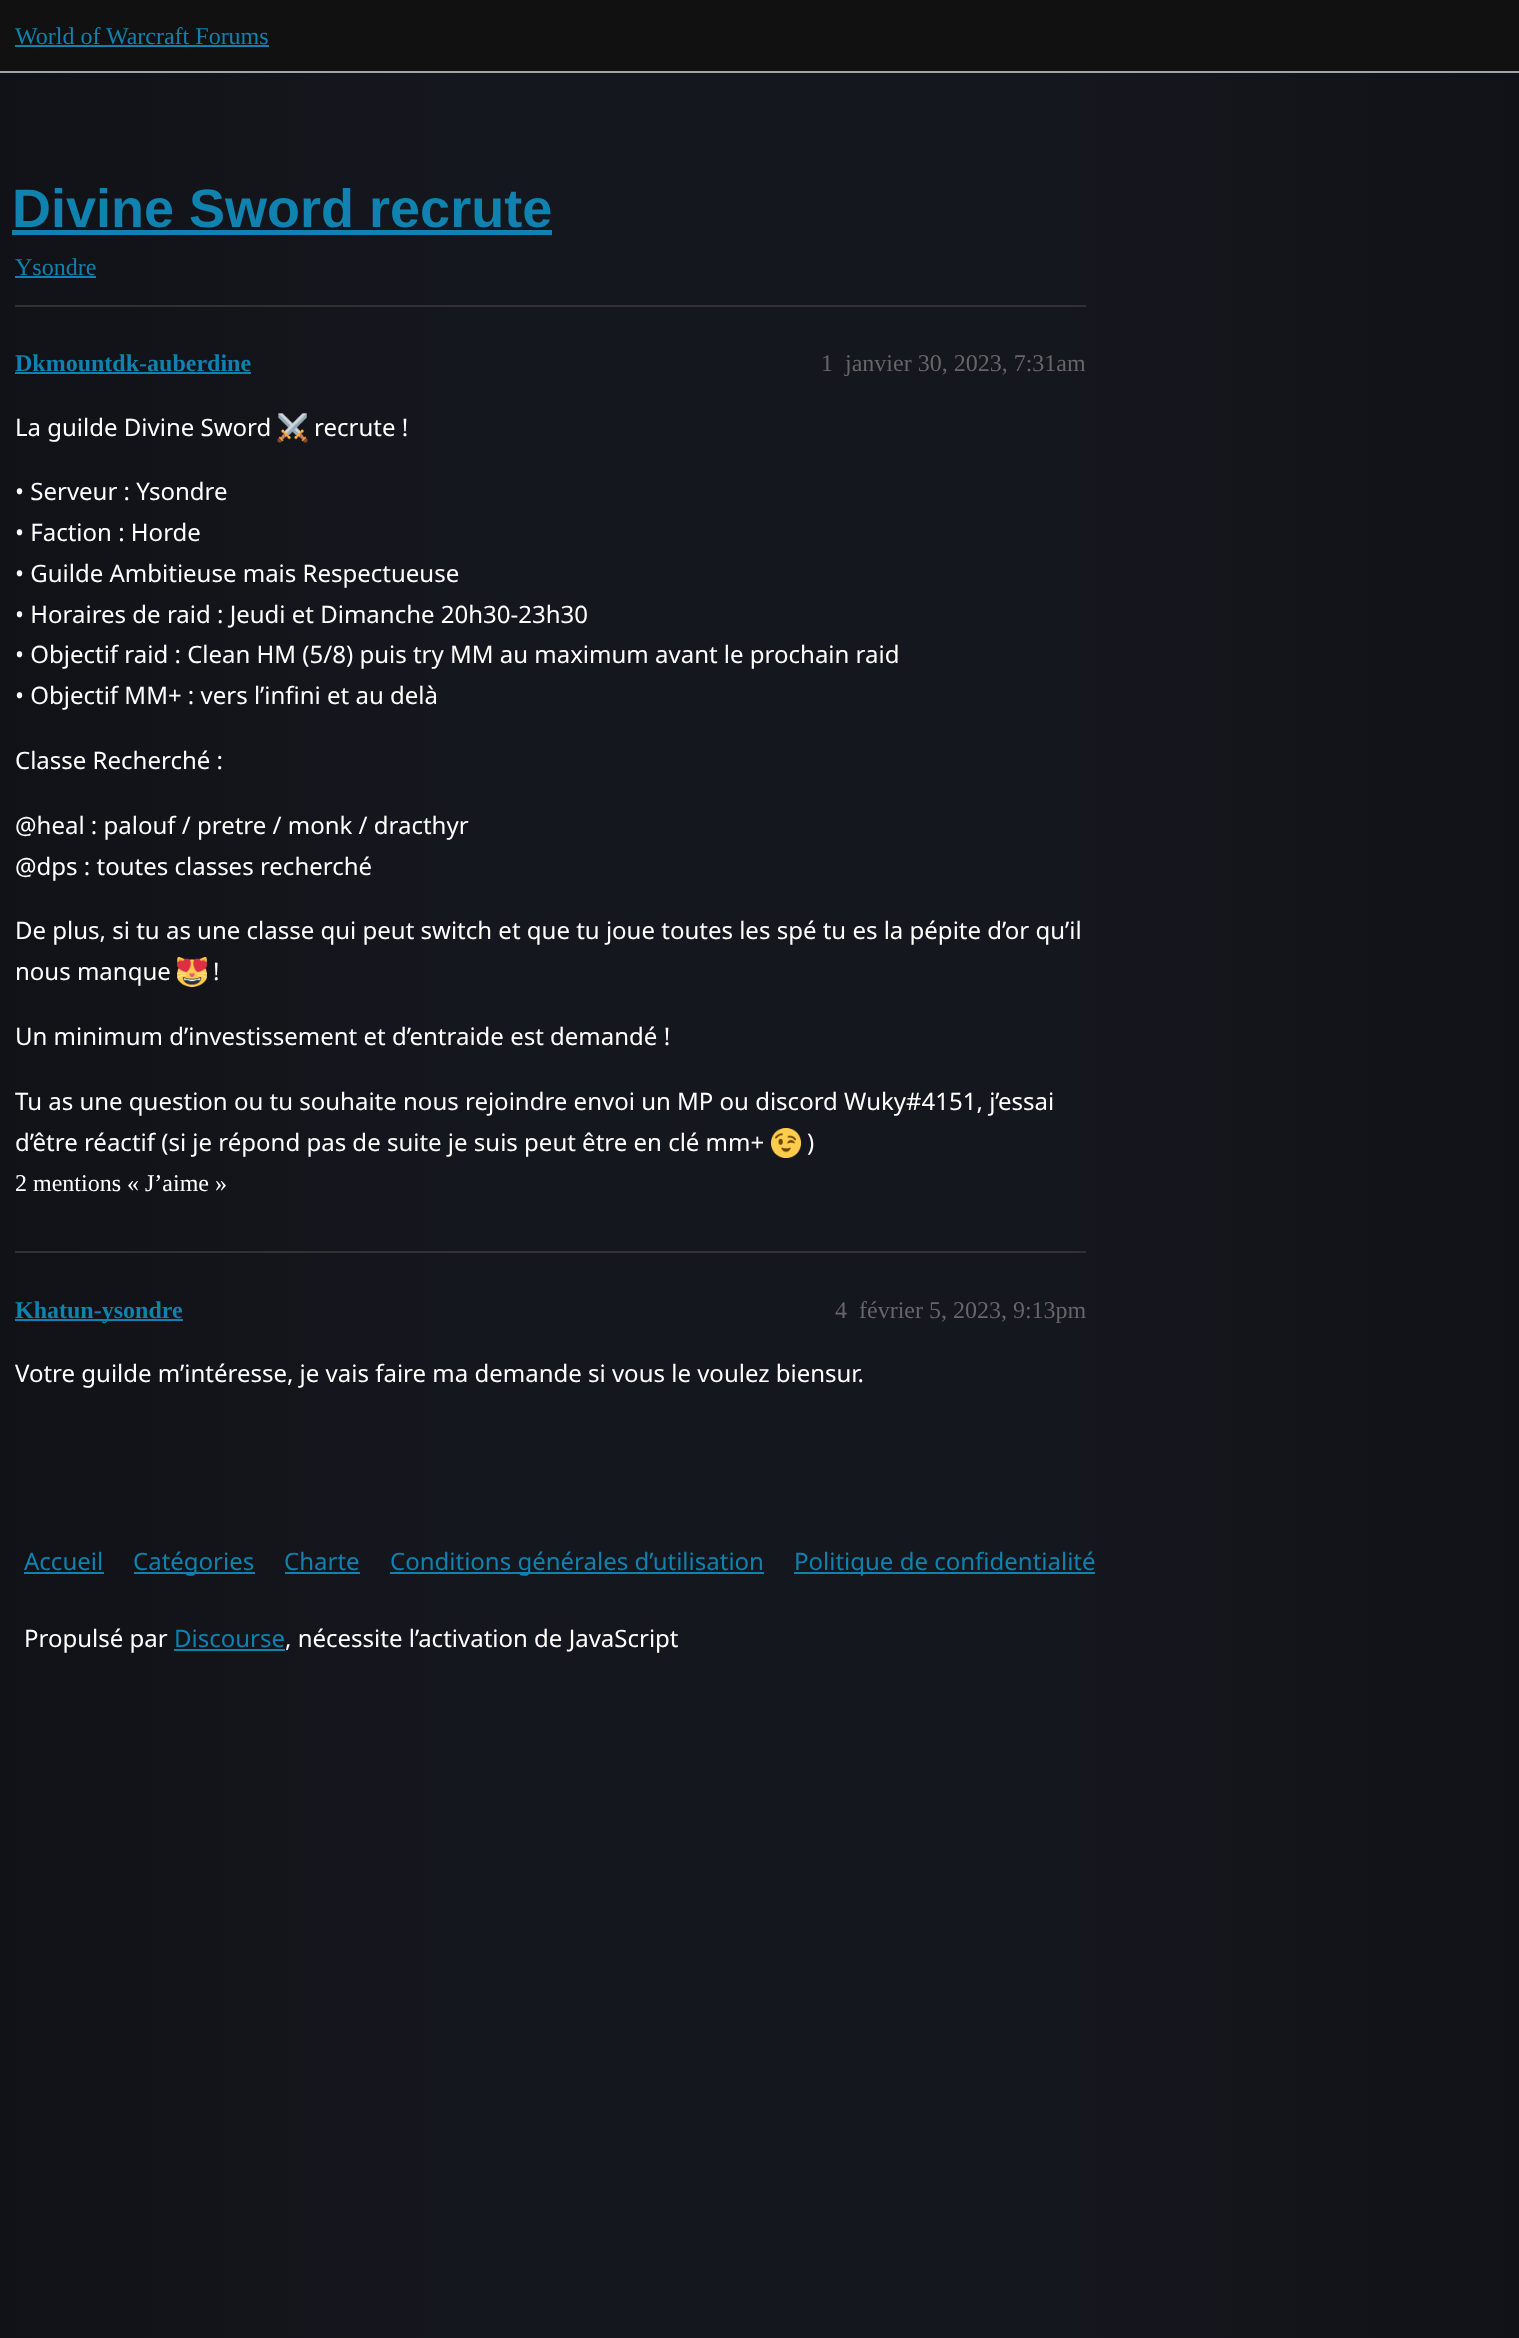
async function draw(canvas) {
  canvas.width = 1519;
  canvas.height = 2338;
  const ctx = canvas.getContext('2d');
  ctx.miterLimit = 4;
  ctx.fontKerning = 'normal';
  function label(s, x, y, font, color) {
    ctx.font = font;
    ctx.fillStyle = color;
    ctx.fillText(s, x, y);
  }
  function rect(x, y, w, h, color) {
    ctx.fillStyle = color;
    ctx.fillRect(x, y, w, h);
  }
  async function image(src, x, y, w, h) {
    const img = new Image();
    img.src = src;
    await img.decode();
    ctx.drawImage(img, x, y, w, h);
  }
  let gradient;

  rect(0, 0, 1519, 2338, '#fff');
  gradient = ctx.createLinearGradient(0, 1169, 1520, 1169);
  gradient.addColorStop(0, '#111217');
  gradient.addColorStop(0.3, '#15171e');
  gradient.addColorStop(0.7, '#15171e');
  gradient.addColorStop(1, '#111217');
  ctx.fillStyle = gradient;
  ctx.fillRect(0, 73, 1519, 2265);
  rect(0, 0, 1519, 71, '#111');
  rect(0, 71, 1519, 2, '#a4a4a4');
  label('World of Warcraft Forums', 15, 44, '24px Liberation Serif', '#0f82af');
  rect(15, 45, 254, 2, '#0f82af');
  label('Divine Sword recrute', 12, 227, 'bold 54px Liberation Sans', '#0f82af');
  rect(12, 230, 540, 5, '#0f82af');
  label('Ysondre', 15, 275, '24px Liberation Serif', '#0f82af');
  rect(15, 276, 81, 2, '#0f82af');
  rect(15, 305, 1071, 2, '#313131');
  label('Dkmountdk-auberdine', 15, 371, 'bold 24px Liberation Serif', '#0f82af');
  rect(15, 372, 236, 2, '#0f82af');
  label('1', 821, 371, '24px Liberation Serif', '#666');
  label('janvier 30, 2023, 7:31am', 845, 371, '24px Liberation Serif', '#666');
  label('La guilde Divine Sword', 15, 436, '24px Noto Sans', '#fff');
  await image('assets/img1.png', 277, 413, 31, 30);
  label('recrute !', 314, 436, '24px Noto Sans', '#fff');
  label('• Serveur : Ysondre', 15, 500, '24px Noto Sans', '#fff');
  label('• Faction : Horde', 15, 541, '24px Noto Sans', '#fff');
  label('• Guilde Ambitieuse mais Respectueuse', 15, 582, '24px Noto Sans', '#fff');
  label('• Horaires de raid : Jeudi et Dimanche 20h30-23h30', 15, 623, '24px Noto Sans', '#fff');
  label('• Objectif raid : Clean HM (5/8) puis try MM au maximum avant le prochain raid', 15, 663, '24px Noto Sans', '#fff');
  label('• Objectif MM+ : vers l’infini et au delà', 15, 704, '24px Noto Sans', '#fff');
  label('Classe Recherché :', 15, 769, '24px Noto Sans', '#fff');
  label('@heal : palouf / pretre / monk / dracthyr', 15, 834, '24px Noto Sans', '#fff');
  label('@dps : toutes classes recherché', 15, 875, '24px Noto Sans', '#fff');
  label('De plus, si tu as une classe qui peut switch et que tu joue toutes les spé tu es la pépite d’or qu’il', 15, 939, '24px Noto Sans', '#fff');
  label('nous manque', 15, 980, '24px Noto Sans', '#fff');
  await image('assets/img2.png', 177, 957, 30, 30);
  label('!', 213, 980, '24px Noto Sans', '#fff');
  label('Un minimum d’investissement et d’entraide est demandé !', 15, 1045, '24px Noto Sans', '#fff');
  label('Tu as une question ou tu souhaite nous rejoindre envoi un MP ou discord Wuky#4151, j’essai', 15, 1110, '24px Noto Sans', '#fff');
  label('d’être réactif (si je répond pas de suite je suis peut être en clé mm+', 15, 1151, '24px Noto Sans', '#fff');
  await image('assets/img3.png', 771, 1128, 30, 30);
  label(')', 807, 1151, '24px Noto Sans', '#fff');
  label('2 mentions « J’aime »', 15, 1191, '24px Liberation Serif', '#fff');
  rect(15, 1251, 1071, 2, '#313131');
  rect(15, 1319, 168, 2, '#0f82af');
  label('Khatun-ysondre', 15, 1318, 'bold 24px Liberation Serif', '#0f82af');
  label('4', 835, 1318, '24px Liberation Serif', '#666');
  label('février 5, 2023, 9:13pm', 859, 1318, '24px Liberation Serif', '#666');
  label('Votre guilde m’intéresse, je vais faire ma demande si vous le voulez biensur.', 15, 1382, '24px Noto Sans', '#fff');
  label('Accueil', 24, 1570, '24px Noto Sans', '#0f82af');
  rect(24, 1572, 80, 2, '#0f82af');
  rect(134, 1572, 121, 2, '#0f82af');
  label('Catégories', 133, 1570, '24px Noto Sans', '#0f82af');
  label('Charte', 284, 1570, '24px Noto Sans', '#0f82af');
  rect(285, 1572, 75, 2, '#0f82af');
  rect(390, 1572, 374, 2, '#0f82af');
  label('Conditions générales d’utilisation', 390, 1570, '24px Noto Sans', '#0f82af');
  rect(794, 1572, 301, 2, '#0f82af');
  label('Politique de confidentialité', 794, 1570, '24px Noto Sans', '#0f82af');
  label('Propulsé par', 24, 1647, '24px Noto Sans', '#fff');
  label('Discourse', 174, 1647, '24px Noto Sans', '#0f82af');
  rect(174, 1649, 111, 2, '#0f82af');
  label(', nécessite l’activation de JavaScript', 285, 1647, '24px Noto Sans', '#fff');
}

draw(document.querySelector('canvas'));
